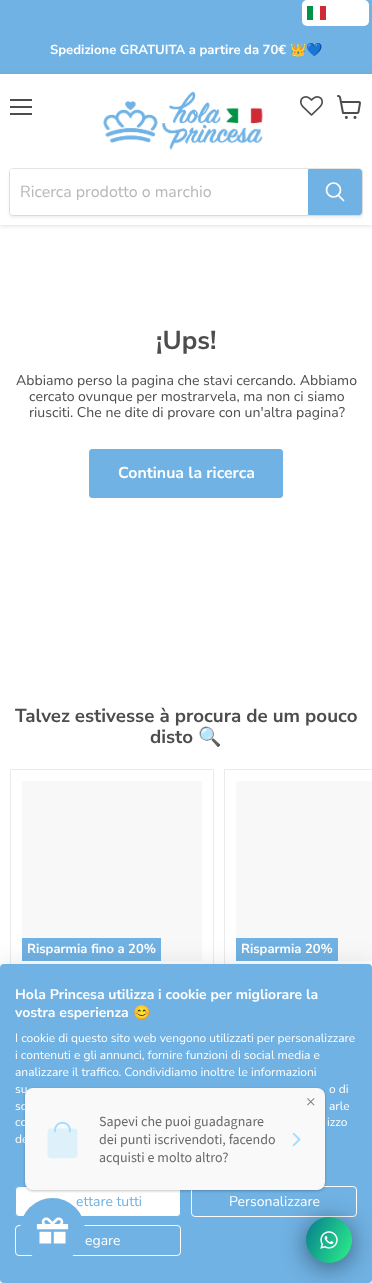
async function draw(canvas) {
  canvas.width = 372;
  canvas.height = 1283;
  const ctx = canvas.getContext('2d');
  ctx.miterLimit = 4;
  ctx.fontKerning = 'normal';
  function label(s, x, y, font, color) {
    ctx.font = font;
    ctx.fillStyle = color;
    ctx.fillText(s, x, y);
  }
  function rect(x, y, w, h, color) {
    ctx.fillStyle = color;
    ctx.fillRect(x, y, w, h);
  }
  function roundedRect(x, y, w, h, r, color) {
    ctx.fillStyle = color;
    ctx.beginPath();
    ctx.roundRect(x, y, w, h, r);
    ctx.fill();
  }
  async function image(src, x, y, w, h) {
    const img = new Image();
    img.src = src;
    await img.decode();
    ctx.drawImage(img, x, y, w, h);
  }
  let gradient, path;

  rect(0, 0, 372, 1283, '#fff');
  rect(0, 0, 372, 74, '#70b2e3');
  roundedRect(302, 0, 67, 26, 5, '#fff');
  rect(307, 6, 6, 14, '#009246');
  rect(320, 6, 6, 14, '#ce2b37');
  label('Spedizione GRATUITA a partire da 70€', 50, 54, 'bold 13.1px Nunito Sans', '#fff');
  label('👑💙', 290, 54, 'bold 13.1px Noto Color Emoji', '#fff');
  ctx.save();
  path = new Path2D('M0 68H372V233H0ZM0 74H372V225H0Z');
  ctx.clip(path, 'evenodd');
  ctx.fillStyle = '#80808040';
  ctx.filter = 'blur(2px)';
  ctx.beginPath();
  ctx.rect(0, 75, 372, 151);
  ctx.fill();
  ctx.filter = 'none';
  ctx.restore();
  rect(10, 99, 22, 2, '#4d4d4d');
  rect(10, 106, 22, 2, '#4d4d4d');
  rect(10, 113, 22, 2, '#4d4d4d');
  await image('assets/img1.png', 300, 96, 23, 20);
  await image('assets/img2.png', 337, 95, 24, 24);
  await image('assets/img3.png', 103, 91, 160, 59);
  ctx.fillStyle = '#8080801c';
  ctx.filter = 'blur(1.5px)';
  ctx.beginPath();
  ctx.roundRect(9, 170, 354, 48, 4);
  ctx.fill();
  ctx.filter = 'none';
  ctx.beginPath();
  ctx.roundRect(9.5, 168.5, 353, 47, 3.5);
  ctx.strokeStyle = '#80808033';
  ctx.stroke();
  ctx.fillStyle = '#fff';
  ctx.beginPath();
  ctx.roundRect(10, 169, 298, 46, [3, 0, 0, 3]);
  ctx.fill();
  label('Ricerca prodotto o marchio', 20, 197, '16px Nunito Sans', '#b8b8b8');
  ctx.fillStyle = '#70b2e3';
  ctx.beginPath();
  ctx.roundRect(308.5, 169.5, 53, 45, [0, 2.5, 2.5, 0]);
  ctx.fill();
  ctx.strokeStyle = '#70b2e3';
  ctx.stroke();
  path = new Path2D('M343.5 200.5L338.5 195.5');
  ctx.strokeStyle = '#fff';
  ctx.lineWidth = 1.7;
  ctx.lineCap = 'round';
  ctx.stroke(path);
  ctx.beginPath();
  ctx.arc(333.5, 190, 7, 0, 2 * Math.PI);
  ctx.stroke();
  label('¡Ups!', 156, 349, 'bold 26px Nunito Sans', '#4d4d4d');
  label('Abbiamo perso la pagina che stavi cercando. Abbiamo', 16, 385, '14.1px Nunito Sans', '#4d4d4d');
  label('cercato ovunque per mostrarvela, ma non ci siamo', 29, 401, '14.1px Nunito Sans', '#4d4d4d');
  label('riusciti. Che ne dite di provare con un\'altra pagina?', 29, 417, '14.1px Nunito Sans', '#4d4d4d');
  ctx.fillStyle = '#70b2e3';
  ctx.beginPath();
  ctx.roundRect(89.5, 449.5, 193, 48, 2.5);
  ctx.fill();
  ctx.strokeStyle = '#70b2e3';
  ctx.lineWidth = 1;
  ctx.stroke();
  label('Continua la ricerca', 118, 478, 'bold 15.9px Nunito Sans', '#fff');
  label('Talvez estivesse à procura de um pouco', 15, 722, 'bold 18.75px Nunito Sans', '#4d4d4d');
  label('disto', 150, 743, 'bold 18.75px Nunito Sans', '#4d4d4d');
  label('🔍', 198, 743, 'bold 18.75px Noto Color Emoji', '#4d4d4d');
  ctx.strokeStyle = '#ebebeb';
  ctx.strokeRect(10.5, 769.5, 203, 389);
  rect(22, 781, 180, 180, '#f8f8f8');
  rect(22, 938, 139, 23, '#70b2e3');
  label('Risparmia fino a 20%', 27, 953, 'bold 13px Nunito Sans', '#fff');
  ctx.strokeRect(224.5, 769.5, 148, 389);
  rect(236, 781, 136, 180, '#f8f8f8');
  rect(236, 938, 102, 23, '#70b2e3');
  label('Risparmia 20%', 241, 953, 'bold 13px Nunito Sans', '#fff');
  ctx.fillStyle = '#0000001a';
  ctx.filter = 'blur(12px)';
  ctx.beginPath();
  ctx.roundRect(0, 964, 372, 319, 4);
  ctx.fill();
  ctx.filter = 'none';
  roundedRect(0, 964, 372, 319, 4, '#70b2e3');
  label('Hola Princesa utilizza i cookie per migliorare la', 15, 999, 'bold 14px Nunito Sans', '#fff');
  label('vostra esperienza', 15, 1017, 'bold 14px Nunito Sans', '#fff');
  label('😊', 133, 1017, 'bold 14px Noto Color Emoji', '#fff');
  label('I cookie di questo sito web vengono utilizzati per personalizzare', 15, 1042, '12px Nunito Sans', '#fff');
  label('i contenuti e gli annunci, fornire funzioni di social media e', 15, 1059, '12px Nunito Sans', '#fff');
  label('analizzare il traffico. Condividiamo inoltre le informazioni', 15, 1076, '12px Nunito Sans', '#fff');
  label('su', 15, 1093, '12px Nunito Sans', '#fff');
  label('o di', 329, 1093, '12px Nunito Sans', '#fff');
  label('so', 15, 1110, '12px Nunito Sans', '#fff');
  label('arle', 329, 1110, '12px Nunito Sans', '#fff');
  label('co', 15, 1126, '12px Nunito Sans', '#fff');
  label('izzo', 327, 1126, '12px Nunito Sans', '#fff');
  label('de', 15, 1143, '12px Nunito Sans', '#fff');
  ctx.beginPath();
  ctx.roundRect(15.5, 1186.5, 165, 30, 3.5);
  ctx.fill();
  ctx.strokeStyle = '#70b2e3';
  ctx.stroke();
  label('ettare tutti', 76, 1206, '14px Nunito Sans', '#70b2e3');
  ctx.beginPath();
  ctx.roundRect(191.5, 1186.5, 165, 30, 3.5);
  ctx.strokeStyle = '#fff';
  ctx.stroke();
  label('Personalizzare', 229, 1206, '14px Nunito Sans', '#fff');
  ctx.beginPath();
  ctx.roundRect(15.5, 1225.5, 165, 30, 3.5);
  ctx.stroke();
  label('egare', 85, 1245, '14px Nunito Sans', '#fff');
  await image('assets/img4.png', 23, 1087, 304, 106);
  await image('assets/img5.png', 20, 1198, 65, 58);
  ctx.fillStyle = '#02061080';
  ctx.filter = 'blur(12px)';
  ctx.beginPath();
  ctx.roundRect(306, 1221, 46, 46, 23);
  ctx.fill();
  ctx.filter = 'none';
  gradient = ctx.createLinearGradient(301, 1227, 357, 1253);
  gradient.addColorStop(0, '#047c8d');
  gradient.addColorStop(1, '#2ff289');
  ctx.fillStyle = gradient;
  ctx.beginPath();
  ctx.arc(329, 1240, 23, 0, 2 * Math.PI);
  ctx.fill();
  await image('assets/img6.png', 320, 1231, 18, 18);
}

draw(document.querySelector('canvas'));
